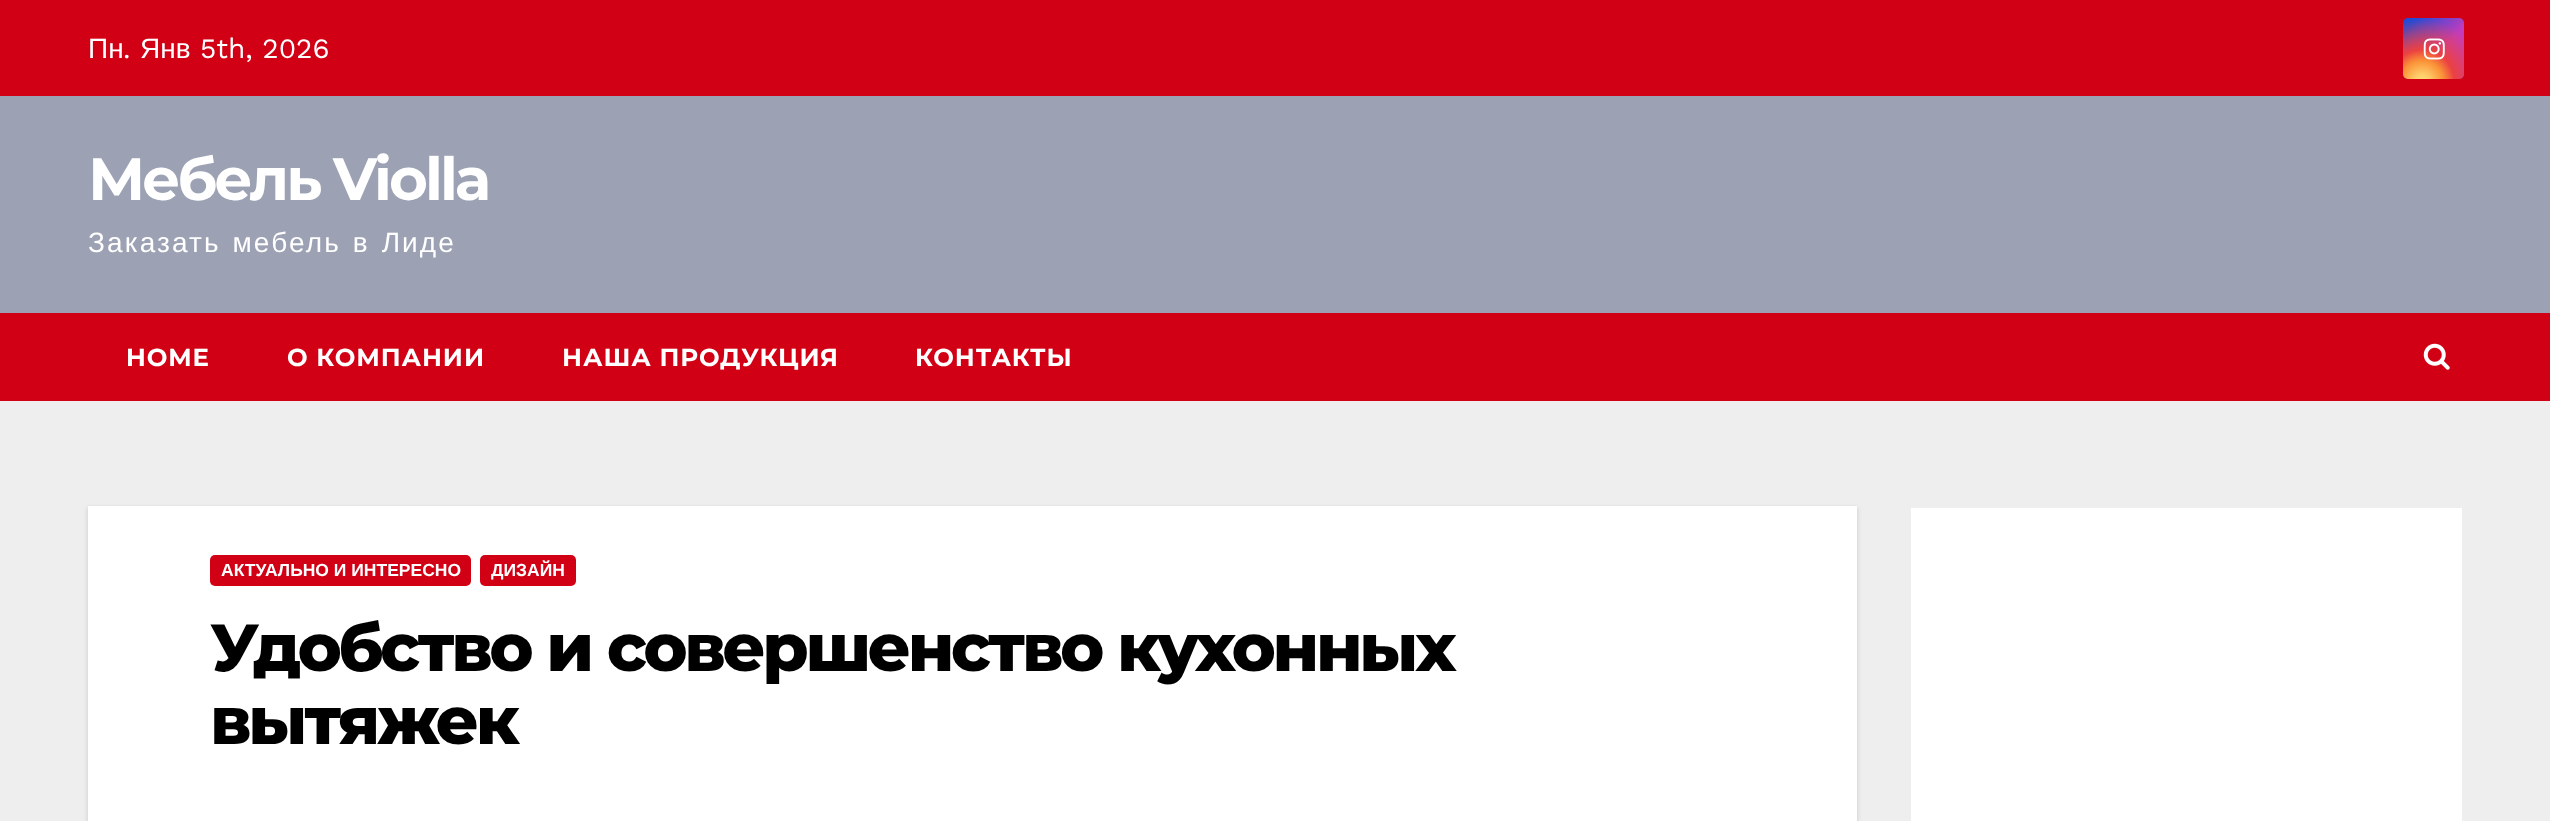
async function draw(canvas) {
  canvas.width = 2550;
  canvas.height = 821;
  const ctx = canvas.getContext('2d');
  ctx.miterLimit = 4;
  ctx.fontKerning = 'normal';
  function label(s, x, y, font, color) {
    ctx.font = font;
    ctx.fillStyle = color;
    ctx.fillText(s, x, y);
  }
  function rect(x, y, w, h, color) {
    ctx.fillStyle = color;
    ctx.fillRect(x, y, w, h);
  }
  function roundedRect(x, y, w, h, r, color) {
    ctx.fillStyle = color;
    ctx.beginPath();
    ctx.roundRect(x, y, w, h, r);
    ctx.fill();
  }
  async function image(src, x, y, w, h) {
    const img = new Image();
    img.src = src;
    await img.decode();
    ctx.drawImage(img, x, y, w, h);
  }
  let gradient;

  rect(0, 0, 2550, 821, '#eee');
  rect(0, 0, 2550, 96, '#d10014');
  label('Пн', 88, 58, '28px Liberation Sans', '#fff');
  label('.', 123, 58, '28px Work Sans', '#fff');
  label('Янв', 140, 58, '28px Liberation Sans', '#fff');
  label('5th, 2026', 200, 58, '28px Work Sans', '#fff');
  gradient = ctx.createLinearGradient(2403, 18, 2464, 79);
  gradient.addColorStop(0.12, '#234bd7');
  gradient.addColorStop(0.58, '#c33cbe');
  ctx.fillStyle = gradient;
  ctx.beginPath();
  ctx.roundRect(2403, 18, 61, 61, 5);
  ctx.fill();
  gradient = ctx.createRadialGradient(2422, 82, 0, 2422, 82, 77);
  gradient.addColorStop(0, '#ffe17d');
  gradient.addColorStop(0.1, '#ffcd69');
  gradient.addColorStop(0.28, '#fa9137');
  gradient.addColorStop(0.42, '#eb4141');
  gradient.addColorStop(0.82, '#eb414100');
  ctx.fillStyle = gradient;
  ctx.beginPath();
  ctx.roundRect(2403, 18, 61, 61, 5);
  ctx.fill();
  await image('assets/img1.png', 2423, 38, 22, 22);
  rect(0, 96, 2550, 217, '#9ca2b4');
  ctx.letterSpacing = '-3px';
  label('Мебель Violla', 88, 200, 'bold 59.5px Montserrat', '#fff');
  ctx.letterSpacing = '2.1px';
  ctx.wordSpacing = '2px';
  label('Заказать мебель в Лиде', 88, 252, '28px Liberation Sans', '#fff');
  rect(0, 313, 2550, 88, '#d10014');
  ctx.letterSpacing = '0.9px';
  ctx.wordSpacing = '0px';
  label('HOME', 126, 366, 'bold 24.5px Montserrat', '#fff');
  label('О КОМПАНИИ', 287, 366, 'bold 24.5px Montserrat', '#fff');
  label('НАША ПРОДУКЦИЯ', 562, 366, 'bold 24.5px Montserrat', '#fff');
  label('КОНТАКТЫ', 915, 366, 'bold 24.5px Montserrat', '#fff');
  await image('assets/img2.png', 2423, 343, 27, 27);
  ctx.fillStyle = '#00000026';
  ctx.filter = 'blur(2.5px)';
  ctx.beginPath();
  ctx.rect(88, 508, 1769, 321);
  ctx.fill();
  ctx.filter = 'none';
  rect(88, 506, 1769, 315, '#fff');
  roundedRect(210, 555, 261, 31, 5, '#d10014');
  ctx.letterSpacing = '0px';
  label('АКТУАЛЬНО И ИНТЕРЕСНО', 221, 576, 'bold 17.5px Liberation Sans', '#fff');
  roundedRect(480, 555, 96, 31, 5, '#d10014');
  label('ДИЗАЙН', 491, 576, 'bold 17.5px Liberation Sans', '#fff');
  ctx.letterSpacing = '-3.3px';
  label('Удобство и совершенство кухонных', 210, 671, '800 66.5px Montserrat', '#000');
  label('вытяжек', 210, 744, '800 66.5px Montserrat', '#000');
  rect(1911, 508, 551, 313, '#fff');
}

draw(document.querySelector('canvas'));
